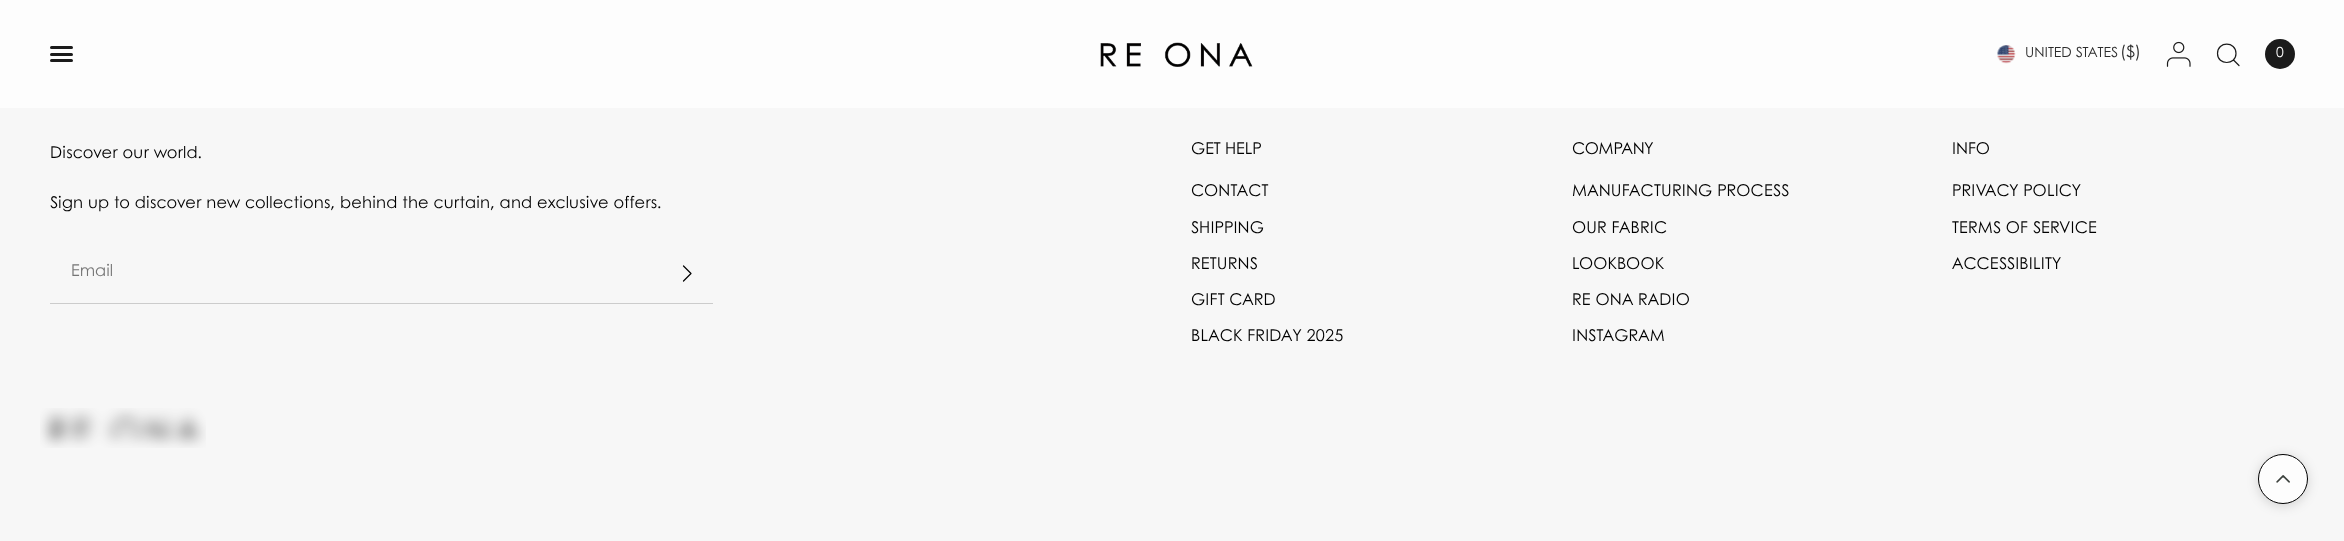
async function draw(canvas) {
  canvas.width = 2344;
  canvas.height = 541;
  const ctx = canvas.getContext('2d');
  ctx.miterLimit = 4;
  ctx.fontKerning = 'normal';
  function label(s, x, y, font, color) {
    ctx.font = font;
    ctx.fillStyle = color;
    ctx.fillText(s, x, y);
  }
  function rect(x, y, w, h, color) {
    ctx.fillStyle = color;
    ctx.fillRect(x, y, w, h);
  }
  function roundedRect(x, y, w, h, r, color) {
    ctx.fillStyle = color;
    ctx.beginPath();
    ctx.roundRect(x, y, w, h, r);
    ctx.fill();
  }
  async function image(src, x, y, w, h) {
    const img = new Image();
    img.src = src;
    await img.decode();
    ctx.drawImage(img, x, y, w, h);
  }
  let path;

  rect(0, 0, 2344, 541, '#f7f7f7');
  rect(0, 0, 2344, 108, '#fdfdfd');
  roundedRect(50, 46, 23, 3, 1.5, '#1b1b1b');
  roundedRect(50, 53, 23, 3, 1.5, '#1b1b1b');
  roundedRect(50, 59, 23, 3, 1.5, '#1b1b1b');
  await image('assets/img1.png', 1100, 42, 153, 25);
  await image('assets/img2.png', 1997, 45, 19, 19);
  label('UNITED STATES', 2025, 57, '14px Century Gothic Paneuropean', '#2b2b2b');
  label('($)', 2120, 57, '16.25px Century Gothic Paneuropean', '#2b2b2b');
  await image('assets/img3.png', 2166, 41, 25, 26);
  path = new Path2D('M2233.5 60L2239 65.5M2236 53.5C2236 65.5 2217.5 65.5 2217.5 53.5C2217.5 41 2236 41 2236 53.5Z');
  ctx.strokeStyle = '#1b1b1b';
  ctx.lineWidth = 1.2;
  ctx.lineCap = 'round';
  ctx.lineJoin = 'round';
  ctx.stroke(path);
  ctx.fillStyle = '#1b1b1b';
  ctx.beginPath();
  ctx.arc(2280, 54, 15, 0, 2 * Math.PI);
  ctx.fill();
  ctx.letterSpacing = '0.2px';
  label('0', 2276, 57, '14px Century Gothic Paneuropean', '#fdfdfd');
  label('Discover our world.', 50, 158, '16.25px Century Gothic Paneuropean', '#000');
  label('Sign up to discover new collections, behind the curtain, and exclusive offers.', 50, 208, '16.25px Century Gothic Paneuropean', '#000');
  rect(50, 303, 663, 1, '#ccc');
  ctx.letterSpacing = '0px';
  label('Email', 71, 276, '16.25px Century Gothic Paneuropean', '#757575');
  path = new Path2D('M683.5 266L691 273.5L683.5 281');
  ctx.strokeStyle = '#000';
  ctx.stroke(path);
  label('GET HELP', 1191, 154, '16.25px Century Gothic Paneuropean', '#000');
  ctx.letterSpacing = '0.2px';
  label('CONTACT', 1191, 196, '16.25px Century Gothic Paneuropean', '#000');
  label('SHIPPING', 1191, 233, '16.25px Century Gothic Paneuropean', '#000');
  label('RETURNS', 1191, 269, '16.25px Century Gothic Paneuropean', '#000');
  label('GIFT CARD', 1191, 305, '16.25px Century Gothic Paneuropean', '#000');
  label('BLACK FRIDAY 2025', 1191, 341, '16.25px Century Gothic Paneuropean', '#000');
  ctx.letterSpacing = '0px';
  label('COMPANY', 1572, 154, '16.25px Century Gothic Paneuropean', '#000');
  ctx.letterSpacing = '0.2px';
  label('MANUFACTURING PROCESS', 1572, 196, '16.25px Century Gothic Paneuropean', '#000');
  label('OUR FABRIC', 1572, 233, '16.25px Century Gothic Paneuropean', '#000');
  label('LOOKBOOK', 1572, 269, '16.25px Century Gothic Paneuropean', '#000');
  label('RE ONA RADIO', 1572, 305, '16.25px Century Gothic Paneuropean', '#000');
  label('INSTAGRAM', 1572, 341, '16.25px Century Gothic Paneuropean', '#000');
  ctx.letterSpacing = '0px';
  label('INFO', 1952, 154, '16.25px Century Gothic Paneuropean', '#000');
  ctx.letterSpacing = '0.2px';
  label('PRIVACY POLICY', 1952, 196, '16.25px Century Gothic Paneuropean', '#000');
  label('TERMS OF SERVICE', 1952, 233, '16.25px Century Gothic Paneuropean', '#000');
  label('ACCESSIBILITY', 1952, 269, '16.25px Century Gothic Paneuropean', '#000');
  await image('assets/img4.png', 40, 408, 166, 40);
  ctx.fillStyle = '#00000026';
  ctx.filter = 'blur(6px)';
  ctx.beginPath();
  ctx.roundRect(2258, 456, 50, 50, 25);
  ctx.fill();
  ctx.filter = 'none';
  ctx.fillStyle = '#fdfdfd';
  ctx.beginPath();
  ctx.arc(2283, 479, 24.5, 0, 2 * Math.PI);
  ctx.fill();
  ctx.lineWidth = 1;
  ctx.stroke();
  await image('assets/img5.png', 2276, 475, 14, 8);
}

draw(document.querySelector('canvas'));
